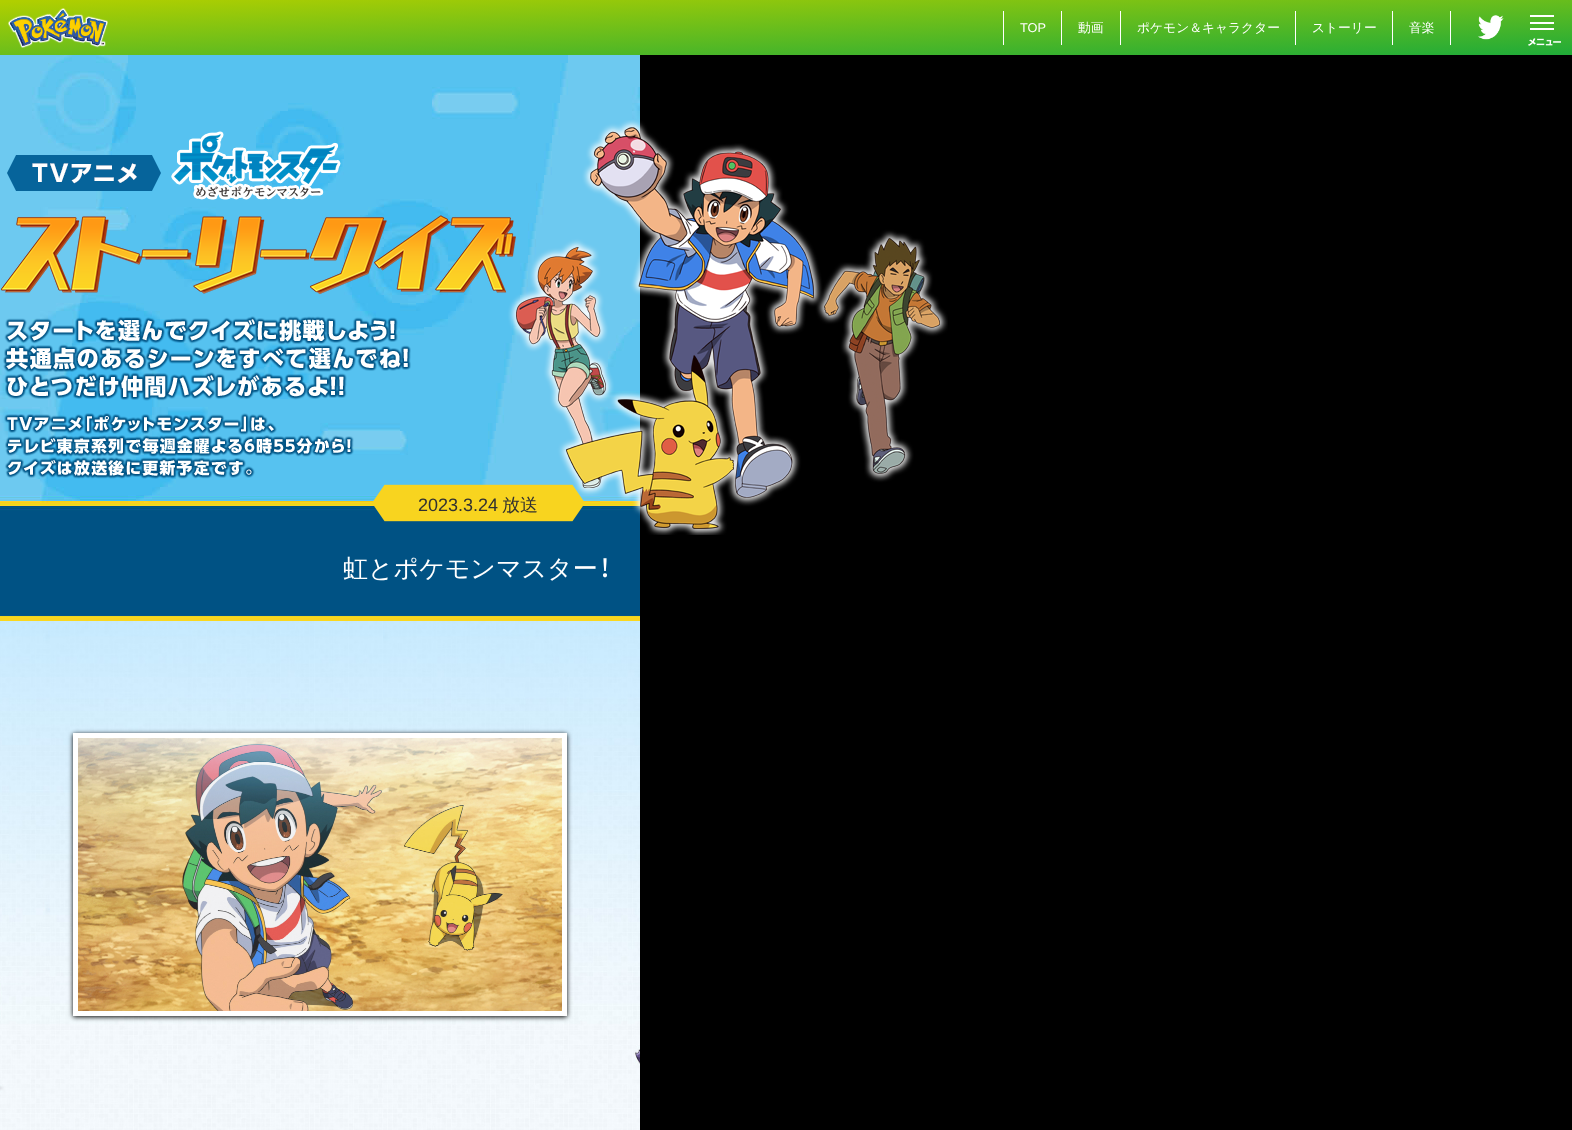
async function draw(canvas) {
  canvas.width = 1572;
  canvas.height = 1130;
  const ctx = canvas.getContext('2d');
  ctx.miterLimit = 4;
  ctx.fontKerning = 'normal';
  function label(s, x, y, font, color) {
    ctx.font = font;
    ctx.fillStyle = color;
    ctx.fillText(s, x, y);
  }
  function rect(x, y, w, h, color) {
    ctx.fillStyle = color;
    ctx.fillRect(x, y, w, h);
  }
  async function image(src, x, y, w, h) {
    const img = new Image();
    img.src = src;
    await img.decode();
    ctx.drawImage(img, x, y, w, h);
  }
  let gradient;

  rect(0, 0, 1572, 1130, '#000');
  gradient = ctx.createLinearGradient(784, -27, 788, 82);
  gradient.addColorStop(0, '#b0cf00');
  gradient.addColorStop(1, '#22ac38');
  ctx.fillStyle = gradient;
  ctx.fillRect(0, 0, 1572, 55);
  await image('assets/img1.png', 8, 8, 100, 40);
  rect(1003, 11, 1, 34, '#fff');
  label('TOP', 1020, 32, '12.75px Liberation Sans', '#fff');
  rect(1061, 11, 1, 34, '#fff');
  label('動画', 1078, 32, '500 12.75px WenQuanYi Zen Hei', '#fff');
  rect(1120, 11, 1, 34, '#fff');
  label('ポケモン＆キャラクター', 1137, 32, '500 12.75px WenQuanYi Zen Hei', '#fff');
  rect(1295, 11, 1, 34, '#fff');
  label('ストーリー', 1312, 32, '500 12.75px WenQuanYi Zen Hei', '#fff');
  rect(1392, 11, 1, 34, '#fff');
  label('音楽', 1409, 32, '500 12.75px WenQuanYi Zen Hei', '#fff');
  rect(1450, 11, 1, 34, '#fff');
  await image('assets/img2.png', 1478, 15, 26, 25);
  rect(1530, 15, 24, 2, '#fff');
  rect(1530, 22, 24, 2, '#fff');
  rect(1530, 28, 24, 2, '#fff');
  await image('assets/img3.png', 1528, 38, 33, 8);
  await image('assets/img4.png', 0, 55, 640, 566);
  await image('assets/img5.png', 1, 120, 947, 415);
  label('2023.3.24', 418, 511, '18px Liberation Sans', '#313131');
  label('放送', 502, 511, '500 18px WenQuanYi Zen Hei', '#313131');
  label('虹とポケモンマスター', 343, 577, '500 25px WenQuanYi Zen Hei', '#fff');
  label('！', 598, 577, '25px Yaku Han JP', '#fff');
  await image('assets/img6.png', 0, 621, 640, 509);
  ctx.fillStyle = '#000';
  ctx.filter = 'blur(2.5px)';
  ctx.beginPath();
  ctx.rect(73, 734, 494, 283);
  ctx.fill();
  ctx.filter = 'none';
  ctx.strokeStyle = '#fff';
  ctx.lineWidth = 5;
  ctx.strokeRect(75.5, 735.5, 489, 278);
  await image('assets/img7.png', 78, 738, 484, 273);
}

draw(document.querySelector('canvas'));
